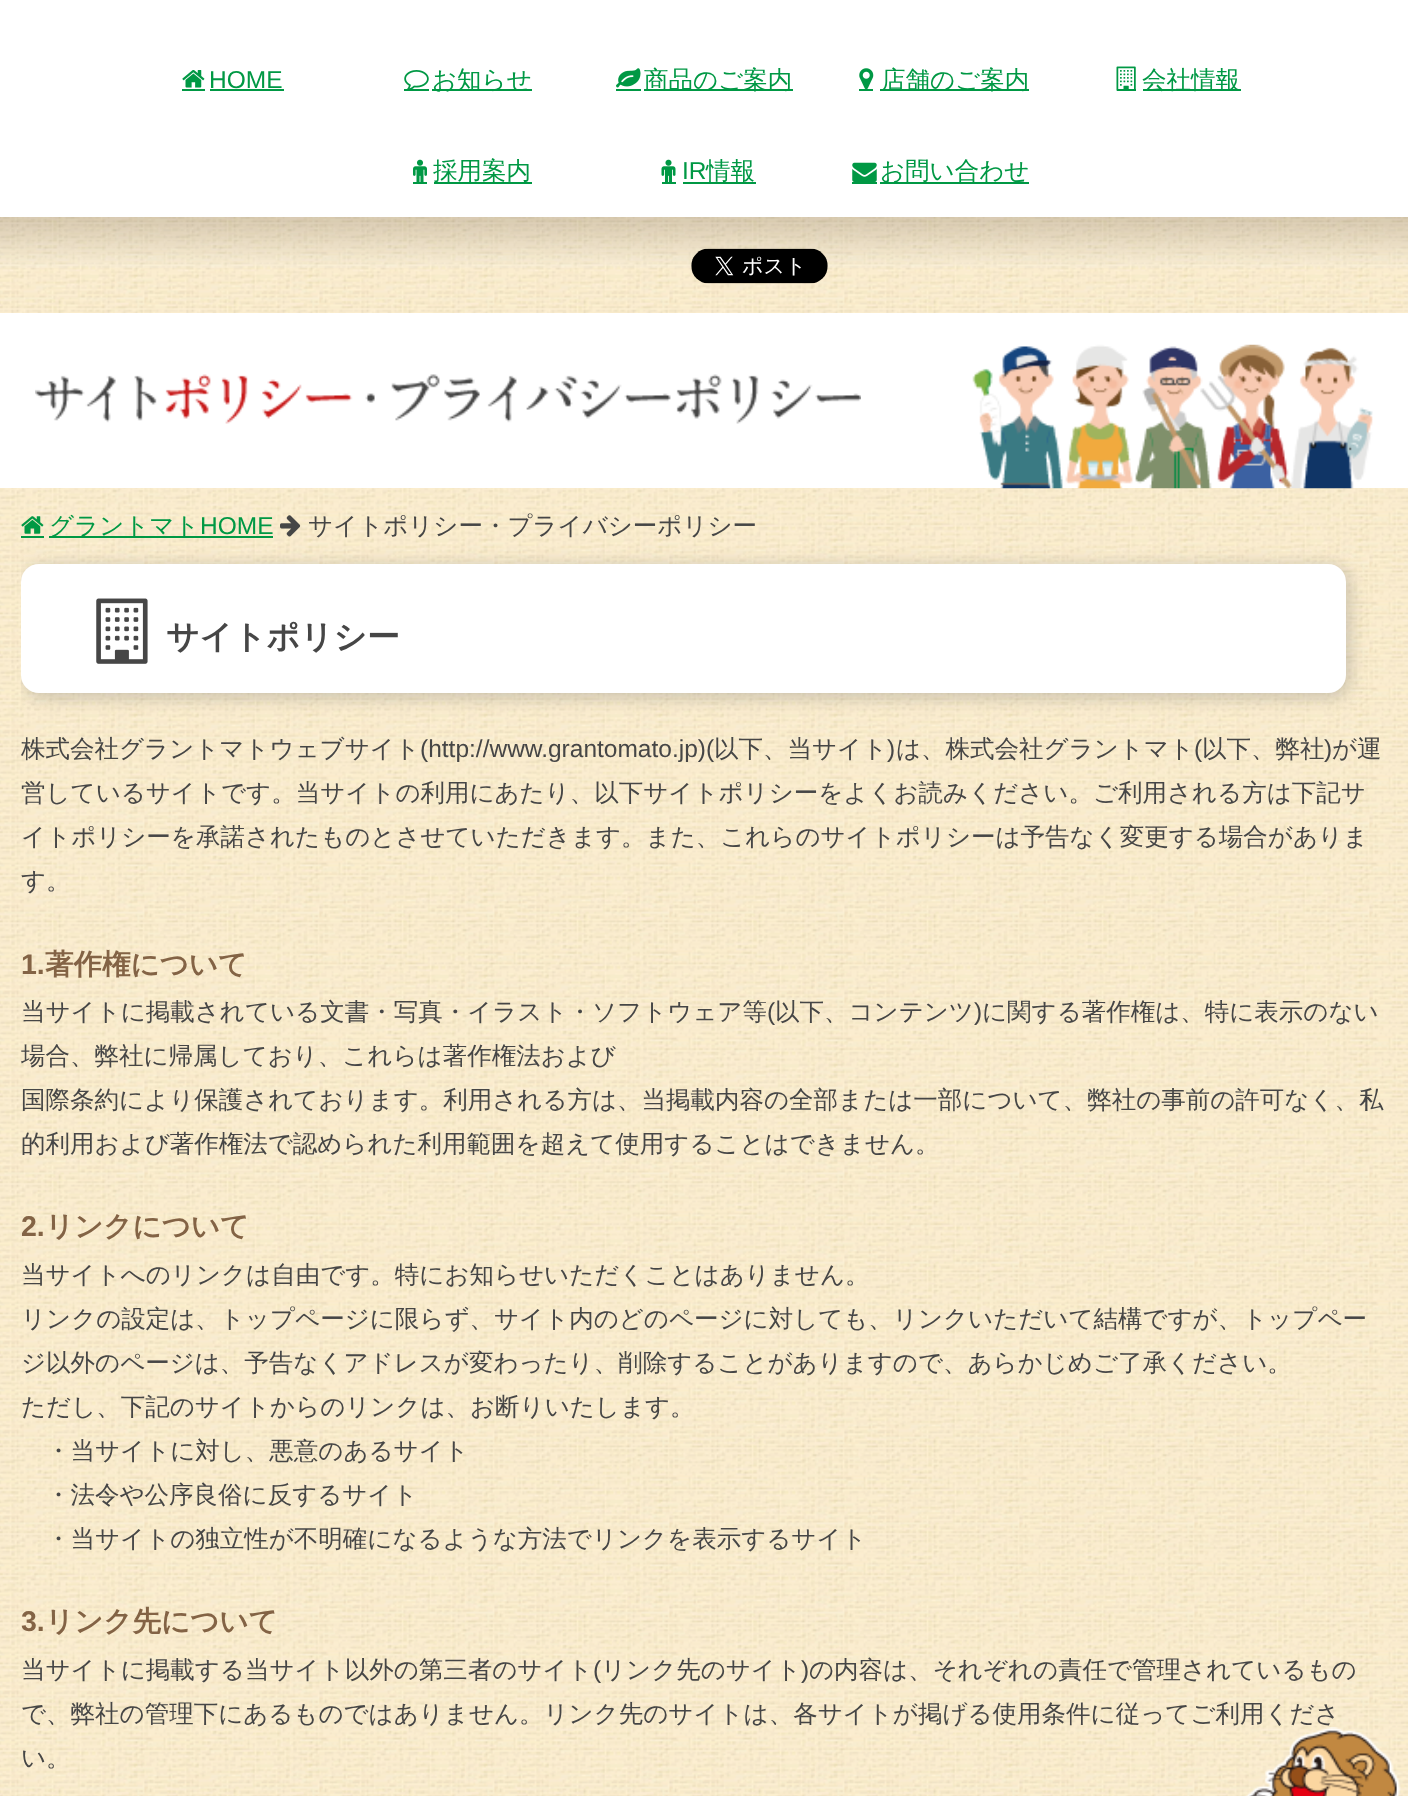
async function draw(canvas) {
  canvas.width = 1408;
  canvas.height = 1796;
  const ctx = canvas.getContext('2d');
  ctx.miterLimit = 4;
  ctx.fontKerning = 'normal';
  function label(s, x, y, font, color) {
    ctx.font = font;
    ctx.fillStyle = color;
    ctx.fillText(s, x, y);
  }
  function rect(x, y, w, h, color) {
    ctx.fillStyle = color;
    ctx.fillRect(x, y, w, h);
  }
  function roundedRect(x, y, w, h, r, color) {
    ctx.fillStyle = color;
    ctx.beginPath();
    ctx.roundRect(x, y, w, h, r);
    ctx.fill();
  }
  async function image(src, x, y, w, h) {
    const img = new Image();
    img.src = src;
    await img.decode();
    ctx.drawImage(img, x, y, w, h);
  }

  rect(0, 0, 1408, 1796, '#fff');
  await image('assets/img1.png', 0, 217, 1408, 1579);
  rect(182, 89, 23, 2, '#009844');
  await image('assets/img2.png', 182, 70, 23, 18);
  label('HOME', 209, 88, '24.5px Liberation Sans', '#009844');
  rect(210, 89, 74, 2, '#009844');
  rect(404, 89, 25, 2, '#009844');
  await image('assets/img3.png', 404, 70, 25, 19);
  rect(432, 89, 100, 2, '#009844');
  label('お知らせ', 432, 88, '500 24.5px WenQuanYi Zen Hei', '#009844');
  rect(616, 89, 25, 2, '#009844');
  await image('assets/img4.png', 616, 68, 25, 20);
  rect(644, 89, 149, 2, '#009844');
  label('商品のご案内', 644, 88, '500 24.5px WenQuanYi Zen Hei', '#009844');
  rect(859, 89, 14, 2, '#009844');
  await image('assets/img5.png', 859, 68, 15, 21);
  rect(880, 89, 149, 2, '#009844');
  label('店舗のご案内', 881, 88, '500 24.5px WenQuanYi Zen Hei', '#009844');
  rect(1117, 89, 19, 2, '#009844');
  await image('assets/img6.png', 1116, 66, 20, 25);
  rect(1143, 89, 98, 2, '#009844');
  label('会社情報', 1142, 88, '500 24.5px WenQuanYi Zen Hei', '#009844');
  rect(413, 182, 14, 2, '#009844');
  await image('assets/img7.png', 413, 159, 14, 23);
  rect(434, 182, 98, 2, '#009844');
  label('採用案内', 433, 179, '500 24.5px WenQuanYi Zen Hei', '#009844');
  rect(662, 182, 14, 2, '#009844');
  await image('assets/img8.png', 661, 159, 15, 23);
  label('IR', 682, 179, '24.5px Liberation Sans', '#009844');
  rect(683, 182, 73, 2, '#009844');
  label('情報', 706, 179, '500 24.5px WenQuanYi Zen Hei', '#009844');
  rect(852, 182, 25, 2, '#009844');
  await image('assets/img9.png', 852, 162, 25, 20);
  rect(880, 182, 149, 2, '#009844');
  label('お問い合わせ', 880, 179, '500 24.5px WenQuanYi Zen Hei', '#009844');
  await image('assets/img10.png', 0, 217, 1408, 51);
  await image('assets/img11.png', 691, 248, 137, 36);
  rect(0, 313, 1408, 175, '#fff');
  await image('assets/img12.png', 972, 344, 401, 145);
  await image('assets/img13.png', 35, 374, 826, 50);
  rect(21, 536, 23, 2, '#009844');
  await image('assets/img14.png', 21, 516, 23, 18);
  rect(49, 536, 224, 2, '#009844');
  label('グラントマト', 49, 534, '500 24.5px WenQuanYi Zen Hei', '#009844');
  label('HOME', 200, 534, '24.5px Liberation Sans', '#009844');
  await image('assets/img15.png', 280, 515, 21, 22);
  label('サイトポリシー・プライバシーポリシー', 308, 534, '500 24.5px WenQuanYi Zen Hei', '#464646');
  ctx.save();
  ctx.beginPath();
  ctx.rect(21, 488, 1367, 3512);
  ctx.clip();
  ctx.fillStyle = '#6b6b6b59';
  ctx.filter = 'blur(9px)';
  ctx.beginPath();
  ctx.roundRect(25, 567, 1324, 130, 18);
  ctx.fill();
  ctx.filter = 'none';
  ctx.restore();
  roundedRect(21, 564, 1325, 129, 18, '#fff');
  await image('assets/img16.png', 96, 598, 52, 66);
  label('サイトポリシー', 166, 648, 'bold 32.75px WenQuanYi Zen Hei', '#464646');
  label('株式会社グラントマトウェブサイト', 21, 757, '500 24.5px WenQuanYi Zen Hei', '#464646');
  label('(http://www.grantomato.jp)(', 420, 757, '24.5px Liberation Sans', '#464646');
  label('以下、当サイト', 714, 757, '500 24.5px WenQuanYi Zen Hei', '#464646');
  label(')', 887, 757, '24.5px Liberation Sans', '#464646');
  label('は、株式会社グラントマト', 896, 757, '500 24.5px WenQuanYi Zen Hei', '#464646');
  label('(', 1194, 757, '24.5px Liberation Sans', '#464646');
  label('以下、弊社', 1202, 757, '500 24.5px WenQuanYi Zen Hei', '#464646');
  label(')', 1324, 757, '24.5px Liberation Sans', '#464646');
  label('が運', 1332, 757, '500 24.5px WenQuanYi Zen Hei', '#464646');
  label('営しているサイトです。当サイトの利用にあたり、以下サイトポリシーをよくお読みください。ご利用される方は下記サ', 21, 801, '500 24.5px WenQuanYi Zen Hei', '#464646');
  label('イトポリシーを承諾されたものとさせていただきます。また、これらのサイトポリシーは予告なく変更する場合がありま', 21, 845, '500 24.5px WenQuanYi Zen Hei', '#464646');
  label('す。', 21, 889, '500 24.5px WenQuanYi Zen Hei', '#464646');
  label('1.', 21, 974, 'bold 28.5px Liberation Sans', '#836345');
  label('著作権について', 45, 974, 'bold 28.5px WenQuanYi Zen Hei', '#836345');
  label('当サイトに掲載されている文書・写真・イラスト・ソフトウェア等', 21, 1020, '500 24.5px WenQuanYi Zen Hei', '#464646');
  label('(', 767, 1020, '24.5px Liberation Sans', '#464646');
  label('以下、コンテンツ', 775, 1020, '500 24.5px WenQuanYi Zen Hei', '#464646');
  label(')', 974, 1020, '24.5px Liberation Sans', '#464646');
  label('に関する著作権は、特に表示のない', 982, 1020, '500 24.5px WenQuanYi Zen Hei', '#464646');
  label('場合、弊社に帰属しており、これらは著作権法および', 21, 1064, '500 24.5px WenQuanYi Zen Hei', '#464646');
  label('国際条約により保護されております。利用される方は、当掲載内容の全部または一部について、弊社の事前の許可なく、私', 21, 1108, '500 24.5px WenQuanYi Zen Hei', '#464646');
  label('的利用および著作権法で認められた利用範囲を超えて使用することはできません。', 21, 1152, '500 24.5px WenQuanYi Zen Hei', '#464646');
  label('2.', 21, 1236, 'bold 28.5px Liberation Sans', '#836345');
  label('リンクについて', 45, 1236, 'bold 28.5px WenQuanYi Zen Hei', '#836345');
  label('当サイトへのリンクは自由です。特にお知らせいただくことはありません。', 21, 1283, '500 24.5px WenQuanYi Zen Hei', '#464646');
  label('リンクの設定は、トップページに限らず、サイト内のどのページに対しても、リンクいただいて結構ですが、トップペー', 21, 1327, '500 24.5px WenQuanYi Zen Hei', '#464646');
  label('ジ以外のページは、予告なくアドレスが変わったり、削除することがありますので、あらかじめご了承ください。', 21, 1371, '500 24.5px WenQuanYi Zen Hei', '#464646');
  label('ただし、下記のサイトからのリンクは、お断りいたします。', 21, 1415, '500 24.5px WenQuanYi Zen Hei', '#464646');
  label('・当サイトに対し、悪意のあるサイト', 46, 1459, '500 24.5px WenQuanYi Zen Hei', '#464646');
  label('・法令や公序良俗に反するサイト', 46, 1503, '500 24.5px WenQuanYi Zen Hei', '#464646');
  label('・当サイトの独立性が不明確になるような方法でリンクを表示するサイト', 46, 1547, '500 24.5px WenQuanYi Zen Hei', '#464646');
  label('3.', 21, 1631, 'bold 28.5px Liberation Sans', '#836345');
  label('リンク先について', 45, 1631, 'bold 28.5px WenQuanYi Zen Hei', '#836345');
  label('当サイトに掲載する当サイト以外の第三者のサイト', 21, 1678, '500 24.5px WenQuanYi Zen Hei', '#464646');
  label('(', 593, 1678, '24.5px Liberation Sans', '#464646');
  label('リンク先のサイト', 601, 1678, '500 24.5px WenQuanYi Zen Hei', '#464646');
  label(')', 801, 1678, '24.5px Liberation Sans', '#464646');
  label('の内容は、それぞれの責任で管理されているもの', 809, 1678, '500 24.5px WenQuanYi Zen Hei', '#464646');
  label('で、弊社の管理下にあるものではありません。リンク先のサイトは、各サイトが掲げる使用条件に従ってご利用くださ', 21, 1722, '500 24.5px WenQuanYi Zen Hei', '#464646');
  label('い。', 21, 1766, '500 24.5px WenQuanYi Zen Hei', '#464646');
  await image('assets/img17.png', 1245, 1727, 156, 69);
}

draw(document.querySelector('canvas'));
